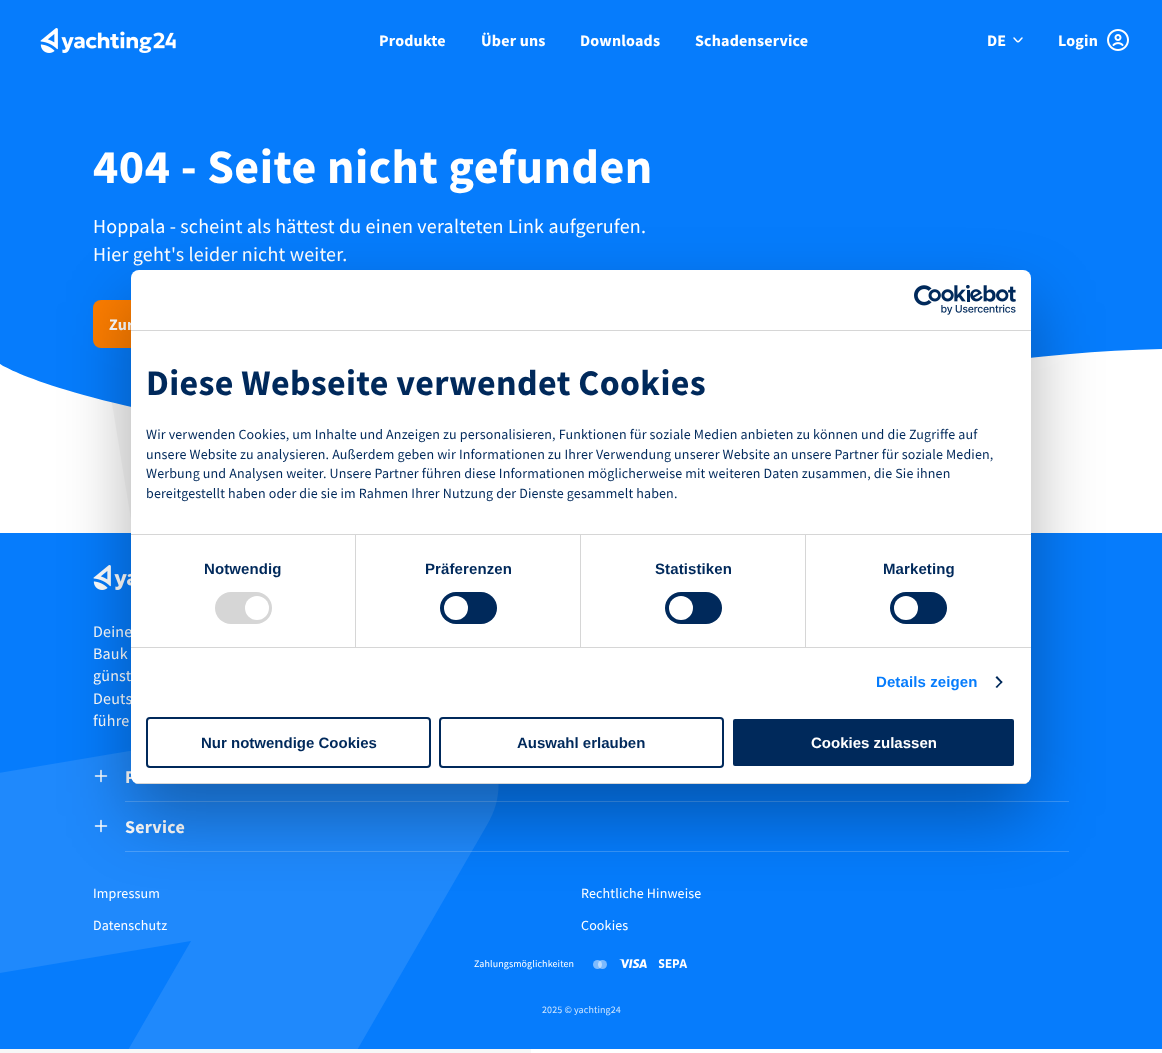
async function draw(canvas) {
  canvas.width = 1162;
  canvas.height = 1053;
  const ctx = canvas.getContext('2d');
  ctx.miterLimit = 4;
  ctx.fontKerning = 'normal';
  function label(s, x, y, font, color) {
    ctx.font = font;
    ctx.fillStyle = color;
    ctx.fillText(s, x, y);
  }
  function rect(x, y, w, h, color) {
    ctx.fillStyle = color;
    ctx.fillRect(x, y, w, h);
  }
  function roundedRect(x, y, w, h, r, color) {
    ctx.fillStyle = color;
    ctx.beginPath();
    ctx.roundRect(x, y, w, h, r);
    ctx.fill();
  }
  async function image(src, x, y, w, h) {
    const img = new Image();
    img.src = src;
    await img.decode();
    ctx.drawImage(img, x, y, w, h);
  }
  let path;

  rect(0, 0, 1162, 1053, '#fff');
  rect(0, 0, 1162, 348, '#067cfc');
  await image('assets/img1.png', 40, 28, 136, 25);
  ctx.letterSpacing = '0.2px';
  label('Produkte', 379, 46, 'bold 16px Source Sans Pro', '#fff');
  label('Über uns', 481, 46, 'bold 16px Source Sans Pro', '#fff');
  label('Downloads', 580, 46, 'bold 16px Source Sans Pro', '#fff');
  label('Schadenservice', 695, 46, 'bold 16px Source Sans Pro', '#fff');
  label('DE', 987, 46, 'bold 16px Source Sans Pro', '#fff');
  path = new Path2D('M1014 38C1019 43 1017 43 1022 38');
  ctx.strokeStyle = '#fff';
  ctx.lineWidth = 1.5;
  ctx.lineCap = 'round';
  ctx.lineJoin = 'round';
  ctx.stroke(path);
  label('Login', 1058, 46, 'bold 16px Source Sans Pro', '#fff');
  await image('assets/img2.png', 1107, 29, 22, 22);
  ctx.letterSpacing = '0.5px';
  label('404 - Seite nicht gefunden', 93, 183, 'bold 48px Source Sans Pro', '#fff');
  ctx.letterSpacing = '0.2px';
  label('Hoppala - scheint als hättest du einen veralteten Link aufgerufen.', 93, 233, '20px Source Sans Pro', '#fff');
  label('Hier geht\'s leider nicht weiter.', 93, 261, '20px Source Sans Pro', '#fff');
  roundedRect(93, 300, 183, 48, 8, '#fc7d00');
  label('Zur', 109, 330, 'bold 16px Source Sans Pro', '#fff');
  await image('assets/img3.png', 0, 402, 531, 651);
  ctx.fillStyle = '#067cfc';
  path = new Path2D('M0 348V364C0 364 46 395 224 425C527 476 859 355 1162 349V348Z');
  ctx.fill(path);
  rect(0, 533, 1162, 516, '#067cfc');
  ctx.save();
  ctx.beginPath();
  ctx.rect(0, 703, 499, 346);
  ctx.clip();
  ctx.fillStyle = '#1f89fc';
  path = new Path2D('M457 714C441 705 423 701 403 705L-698 890C-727 894-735 931-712 947C-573 1045-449 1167-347 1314C-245 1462-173 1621-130 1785C-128 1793-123 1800-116 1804C-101 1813-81 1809-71 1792L487 825C512 784 494 736 457 715ZM-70 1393C-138 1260-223 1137-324 1027L191 941Z');
  ctx.fill(path);
  ctx.restore();
  await image('assets/img4.png', 93, 565, 38, 25);
  label('Deine', 93, 637, '16px Source Sans Pro', '#fff');
  label('Bauk', 93, 659, '16px Source Sans Pro', '#fff');
  label('günst', 93, 681, '16px Source Sans Pro', '#fff');
  label('Deuts', 93, 704, '16px Source Sans Pro', '#fff');
  label('führe', 93, 726, '16px Source Sans Pro', '#fff');
  path = new Path2D('M101 770.5V781.5M95.5 776H106.5');
  ctx.stroke(path);
  rect(125, 801, 944, 1, '#ffffff33');
  ctx.letterSpacing = '0.25px';
  label('P', 125, 783, 'bold 18px Source Sans Pro', '#fff');
  path = new Path2D('M101 820.5V831.5M95.5 826H106.5');
  ctx.stroke(path);
  rect(125, 851, 944, 1, '#ffffff33');
  label('Service', 125, 833, 'bold 18px Source Sans Pro', '#fff');
  ctx.letterSpacing = '0.14px';
  label('Impressum', 93, 898, '14px Source Sans Pro', '#fff');
  label('Rechtliche Hinweise', 581, 898, '14px Source Sans Pro', '#fff');
  label('Datenschutz', 93, 930, '14px Source Sans Pro', '#fff');
  label('Cookies', 581, 930, '14px Source Sans Pro', '#fff');
  ctx.letterSpacing = '0.1px';
  label('Zahlungsmöglichkeiten', 474, 967, '10px Source Sans Pro', '#fff');
  ctx.fillStyle = '#7ebbfd';
  ctx.beginPath();
  ctx.arc(597.5, 964.5, 4.5, 0, 2 * Math.PI);
  ctx.fill();
  ctx.fillStyle = '#ffffff7a';
  ctx.beginPath();
  ctx.arc(602.5, 964.5, 4.5, 0, 2 * Math.PI);
  ctx.fill();
  await image('assets/img5.png', 619, 959, 28, 10);
  await image('assets/img6.png', 658, 959, 30, 10);
  label('2025 © yachting24', 542, 1013, '10px Source Sans Pro', '#cde5fe');
  ctx.fillStyle = '#0000004d';
  ctx.filter = 'blur(34px)';
  ctx.beginPath();
  ctx.roundRect(131, 302, 900, 514, 8);
  ctx.fill();
  ctx.filter = 'none';
  roundedRect(131, 270, 900, 514, 8, '#fff');
  rect(131, 330, 900, 1, '#d6d6d6');
  await image('assets/img7.png', 914, 285, 102, 30);
  rect(131, 534, 900, 1, '#d6d6d6');
  ctx.letterSpacing = '0.35px';
  label('Diese Webseite verwendet Cookies', 146, 395, 'bold 36px Source Sans Pro', '#00295b');
  ctx.letterSpacing = '0.14px';
  label('Wir verwenden Cookies, um Inhalte und Anzeigen zu personalisieren, Funktionen für soziale Medien anbieten zu können und die Zugriffe auf', 146, 439, '14px Source Sans Pro', '#00295b');
  label('unsere Website zu analysieren. Außerdem geben wir Informationen zu Ihrer Verwendung unserer Website an unsere Partner für soziale Medien,', 146, 459, '14px Source Sans Pro', '#00295b');
  label('Werbung und Analysen weiter. Unsere Partner führen diese Informationen möglicherweise mit weiteren Daten zusammen, die Sie ihnen', 146, 478, '14px Source Sans Pro', '#00295b');
  label('bereitgestellt haben oder die sie im Rahmen Ihrer Nutzung der Dienste gesammelt haben.', 146, 498, '14px Source Sans Pro', '#00295b');
  rect(131, 647, 900, 1, '#d6d6d6');
  rect(355, 535, 1, 112, '#d6d6d6');
  ctx.letterSpacing = '0.1px';
  label('Notwendig', 204, 574, 'bold 15px Liberation Sans', '#00295b');
  roundedRect(215, 592, 57, 32, 16, '#d6d6d6');
  ctx.fillStyle = '#fff';
  ctx.beginPath();
  ctx.arc(257, 608, 12, 0, 2 * Math.PI);
  ctx.fill();
  rect(580, 535, 1, 112, '#d6d6d6');
  label('Präferenzen', 425, 574, 'bold 15px Liberation Sans', '#00295b');
  roundedRect(440, 592, 57, 32, 16, '#00295b');
  ctx.fillStyle = '#fff';
  ctx.beginPath();
  ctx.arc(456, 608, 12, 0, 2 * Math.PI);
  ctx.fill();
  rect(805, 535, 1, 112, '#d6d6d6');
  label('Statistiken', 655, 574, 'bold 15px Liberation Sans', '#00295b');
  roundedRect(665, 592, 57, 32, 16, '#00295b');
  ctx.fillStyle = '#fff';
  ctx.beginPath();
  ctx.arc(681, 608, 12, 0, 2 * Math.PI);
  ctx.fill();
  label('Marketing', 883, 574, 'bold 15px Liberation Sans', '#00295b');
  roundedRect(890, 592, 57, 32, 16, '#00295b');
  ctx.fillStyle = '#fff';
  ctx.beginPath();
  ctx.arc(906, 608, 12, 0, 2 * Math.PI);
  ctx.fill();
  label('Details zeigen', 876, 687, 'bold 15px Liberation Sans', '#067cfc');
  ctx.fillStyle = '#00295b';
  path = new Path2D('M997 676L1002.5 682L1001.5 683.5L995.5 677.5Z');
  ctx.fill(path);
  path = new Path2D('M1001.5 681L1002.5 682L997 688L995.5 687Z');
  ctx.fill(path);
  ctx.save();
  ctx.beginPath();
  ctx.roundRect(131, 270, 900, 514, 8);
  ctx.clip();
  rect(131, 783, 900, 1, '#d6d6d6');
  ctx.restore();
  ctx.beginPath();
  ctx.roundRect(147, 718, 283, 49, 3);
  ctx.strokeStyle = '#00295b';
  ctx.lineWidth = 2;
  ctx.lineJoin = 'miter';
  ctx.stroke();
  ctx.letterSpacing = '0px';
  label('Nur notwendige Cookies', 201, 748, 'bold 15px Liberation Sans', '#00295b');
  ctx.beginPath();
  ctx.roundRect(440, 718, 283, 49, 3);
  ctx.stroke();
  label('Auswahl erlauben', 517, 748, 'bold 15px Liberation Sans', '#00295b');
  ctx.beginPath();
  ctx.roundRect(732, 718, 283, 49, 3);
  ctx.fill();
  ctx.strokeStyle = '#fff';
  ctx.stroke();
  label('Cookies zulassen', 811, 748, 'bold 15px Liberation Sans', '#fff');
}

draw(document.querySelector('canvas'));
